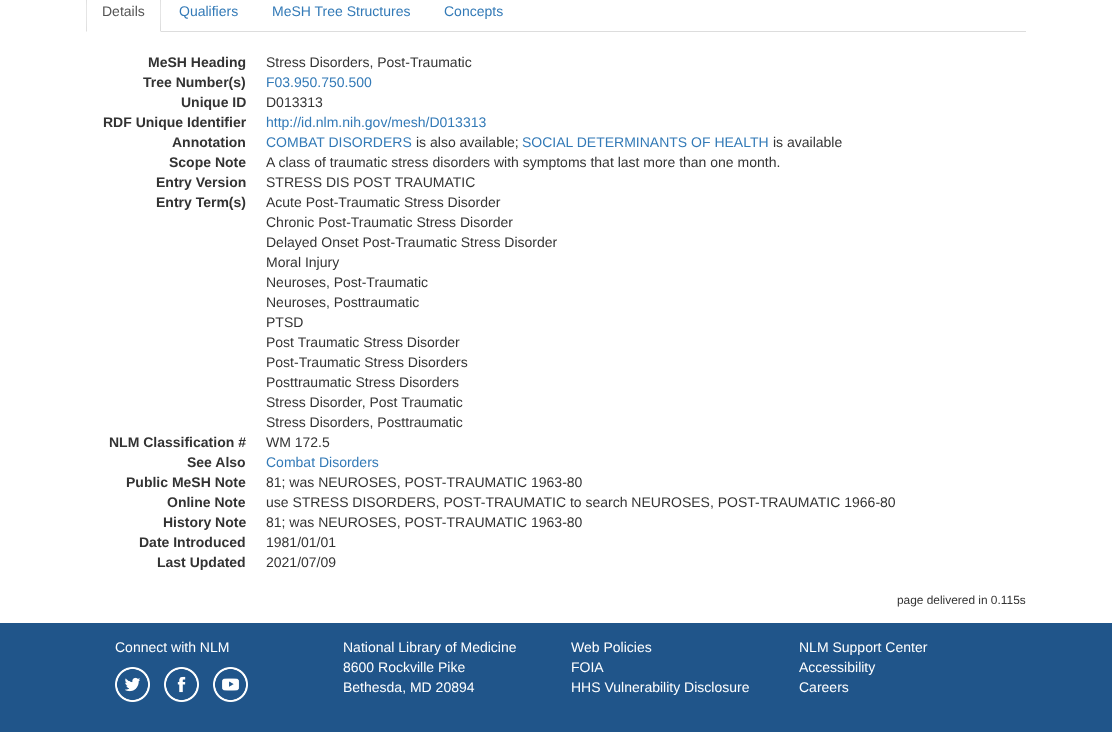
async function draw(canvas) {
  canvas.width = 1112;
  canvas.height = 732;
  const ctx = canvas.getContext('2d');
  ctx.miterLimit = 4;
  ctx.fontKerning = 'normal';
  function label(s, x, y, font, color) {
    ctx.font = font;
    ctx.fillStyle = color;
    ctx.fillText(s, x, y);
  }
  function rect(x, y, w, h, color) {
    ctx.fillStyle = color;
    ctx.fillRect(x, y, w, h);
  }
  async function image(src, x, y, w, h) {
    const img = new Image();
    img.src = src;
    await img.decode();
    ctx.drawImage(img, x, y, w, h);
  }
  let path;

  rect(0, 0, 1112, 732, '#fff');
  rect(161, 31, 865, 1, '#ddd');
  path = new Path2D('M161 32V-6C161-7 160-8 160-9L159-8C161-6 160 26 160 31Z');
  ctx.fill(path);
  path = new Path2D('M86 32L87 31C87 26 86-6 88-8L87-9L86-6Z');
  ctx.fill(path);
  label('Details', 102, 16, '14px Liberation Sans', '#555');
  label('Qualifiers', 179, 16, '14px Liberation Sans', '#337ab7');
  label('MeSH Tree Structures', 272, 16, '14px Liberation Sans', '#337ab7');
  label('Concepts', 444, 16, '14px Liberation Sans', '#337ab7');
  label('MeSH Heading', 148, 67, 'bold 14px Liberation Sans', '#333');
  label('Stress Disorders, Post-Traumatic', 266, 67, '14px Liberation Sans', '#333');
  label('Tree Number(s)', 143, 87, 'bold 14px Liberation Sans', '#333');
  label('F03.950.750.500', 266, 87, '14px Liberation Sans', '#337ab7');
  label('Unique ID', 181, 107, 'bold 14px Liberation Sans', '#333');
  label('D013313', 266, 107, '14px Liberation Sans', '#333');
  label('RDF Unique Identifier', 103, 127, 'bold 14px Liberation Sans', '#333');
  label('http://id.nlm.nih.gov/mesh/D013313', 266, 127, '14px Liberation Sans', '#337ab7');
  label('Annotation', 172, 147, 'bold 14px Liberation Sans', '#333');
  label('COMBAT DISORDERS', 266, 147, '14px Liberation Sans', '#337ab7');
  label('is also available;', 416, 147, '14px Liberation Sans', '#333');
  label('SOCIAL DETERMINANTS OF HEALTH', 522, 147, '14px Liberation Sans', '#337ab7');
  label('is available', 773, 147, '14px Liberation Sans', '#333');
  label('Scope Note', 169, 167, 'bold 14px Liberation Sans', '#333');
  label('A class of traumatic stress disorders with symptoms that last more than one month.', 266, 167, '14px Liberation Sans', '#333');
  label('Entry Version', 156, 187, 'bold 14px Liberation Sans', '#333');
  label('STRESS DIS POST TRAUMATIC', 266, 187, '14px Liberation Sans', '#333');
  label('Entry Term(s)', 156, 207, 'bold 14px Liberation Sans', '#333');
  label('Acute Post-Traumatic Stress Disorder', 266, 207, '14px Liberation Sans', '#333');
  label('Chronic Post-Traumatic Stress Disorder', 266, 227, '14px Liberation Sans', '#333');
  label('Delayed Onset Post-Traumatic Stress Disorder', 266, 247, '14px Liberation Sans', '#333');
  label('Moral Injury', 266, 267, '14px Liberation Sans', '#333');
  label('Neuroses, Post-Traumatic', 266, 287, '14px Liberation Sans', '#333');
  label('Neuroses, Posttraumatic', 266, 307, '14px Liberation Sans', '#333');
  label('PTSD', 266, 327, '14px Liberation Sans', '#333');
  label('Post Traumatic Stress Disorder', 266, 347, '14px Liberation Sans', '#333');
  label('Post-Traumatic Stress Disorders', 266, 367, '14px Liberation Sans', '#333');
  label('Posttraumatic Stress Disorders', 266, 387, '14px Liberation Sans', '#333');
  label('Stress Disorder, Post Traumatic', 266, 407, '14px Liberation Sans', '#333');
  label('Stress Disorders, Posttraumatic', 266, 427, '14px Liberation Sans', '#333');
  label('NLM Classification #', 109, 447, 'bold 14px Liberation Sans', '#333');
  label('WM 172.5', 266, 447, '14px Liberation Sans', '#333');
  label('See Also', 187, 467, 'bold 14px Liberation Sans', '#333');
  label('Combat Disorders', 266, 467, '14px Liberation Sans', '#337ab7');
  label('Public MeSH Note', 126, 487, 'bold 14px Liberation Sans', '#333');
  label('81; was NEUROSES, POST-TRAUMATIC 1963-80', 266, 487, '14px Liberation Sans', '#333');
  label('Online Note', 167, 507, 'bold 14px Liberation Sans', '#333');
  label('use STRESS DISORDERS, POST-TRAUMATIC to search NEUROSES, POST-TRAUMATIC 1966-80', 266, 507, '14px Liberation Sans', '#333');
  label('History Note', 163, 527, 'bold 14px Liberation Sans', '#333');
  label('81; was NEUROSES, POST-TRAUMATIC 1963-80', 266, 527, '14px Liberation Sans', '#333');
  label('Date Introduced', 139, 547, 'bold 14px Liberation Sans', '#333');
  label('1981/01/01', 266, 547, '14px Liberation Sans', '#333');
  label('Last Updated', 157, 567, 'bold 14px Liberation Sans', '#333');
  label('2021/07/09', 266, 567, '14px Liberation Sans', '#333');
  label('page delivered in 0.115s', 897, 604, '11.9px Liberation Sans', '#333');
  rect(0, 623, 1112, 109, '#20558a');
  label('Connect with NLM', 115, 652, '14px Liberation Sans', '#fff');
  await image('assets/img1.png', 115, 667, 35, 35);
  await image('assets/img2.png', 164, 667, 35, 35);
  await image('assets/img3.png', 213, 667, 35, 35);
  label('National Library of Medicine', 343, 652, '14px Liberation Sans', '#fff');
  label('8600 Rockville Pike', 343, 672, '14px Liberation Sans', '#fff');
  label('Bethesda, MD 20894', 343, 692, '14px Liberation Sans', '#fff');
  label('Web Policies', 571, 652, '14px Liberation Sans', '#fff');
  label('FOIA', 571, 672, '14px Liberation Sans', '#fff');
  label('HHS Vulnerability Disclosure', 571, 692, '14px Liberation Sans', '#fff');
  label('NLM Support Center', 799, 652, '14px Liberation Sans', '#fff');
  label('Accessibility', 799, 672, '14px Liberation Sans', '#fff');
  label('Careers', 799, 692, '14px Liberation Sans', '#fff');
}

draw(document.querySelector('canvas'));
